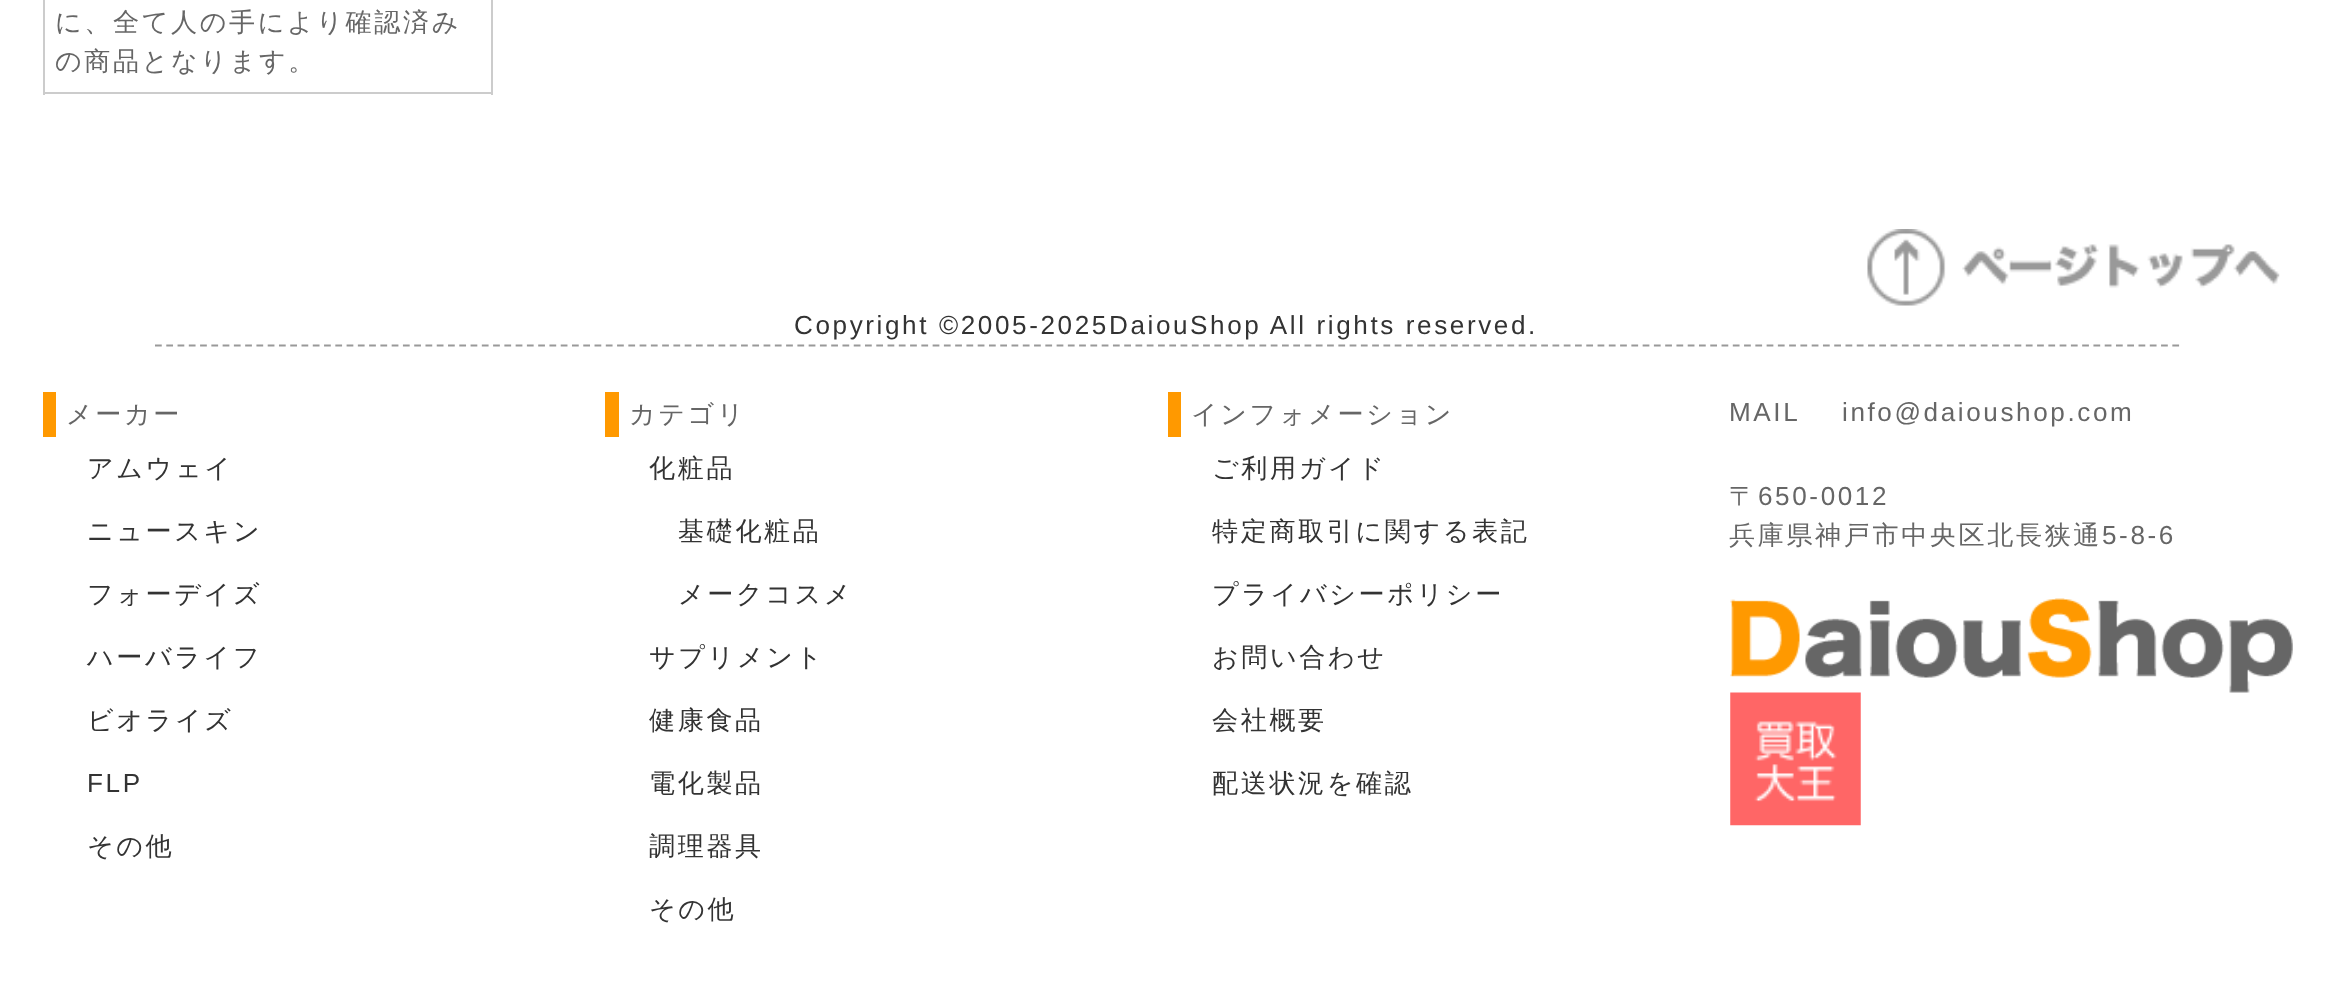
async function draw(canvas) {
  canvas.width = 2332;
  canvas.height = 1007;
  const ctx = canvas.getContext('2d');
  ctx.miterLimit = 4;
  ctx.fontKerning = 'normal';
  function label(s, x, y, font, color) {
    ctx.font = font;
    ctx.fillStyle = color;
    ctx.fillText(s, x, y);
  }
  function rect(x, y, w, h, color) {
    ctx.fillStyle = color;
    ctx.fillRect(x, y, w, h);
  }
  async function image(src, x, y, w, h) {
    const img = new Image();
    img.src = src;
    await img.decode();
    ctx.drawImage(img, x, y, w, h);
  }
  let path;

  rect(0, 0, 2332, 1007, '#fff');
  rect(491, 0, 2, 95, '#ccc');
  rect(43, 92, 450, 2, '#ccc');
  rect(43, 0, 2, 95, '#ccc');
  ctx.letterSpacing = '2.6px';
  label('に、全て人の手により確認済み', 55, 31, '500 26.1px WenQuanYi Zen Hei', '#666');
  label('の商品となります。', 55, 70, '500 26.1px WenQuanYi Zen Hei', '#666');
  await image('assets/img1.png', 1867, 229, 413, 77);
  path = new Path2D('M155 345.5H2180');
  ctx.strokeStyle = '#999';
  ctx.lineWidth = 2.2;
  ctx.setLineDash([6.75, 4.52]);
  ctx.stroke(path);
  label('Copyright ©2005-2025DaiouShop All rights reserved.', 794, 334, '26.1px Liberation Sans', '#333');
  rect(43, 392, 13, 45, '#f90');
  label('メーカー', 66, 423, '500 26.1px WenQuanYi Zen Hei', '#666');
  label('アムウェイ', 87, 477, '500 26.1px WenQuanYi Zen Hei', '#333');
  label('ニュースキン', 87, 540, '500 26.1px WenQuanYi Zen Hei', '#333');
  label('フォーデイズ', 87, 603, '500 26.1px WenQuanYi Zen Hei', '#333');
  label('ハーバライフ', 87, 666, '500 26.1px WenQuanYi Zen Hei', '#333');
  label('ビオライズ', 87, 729, '500 26.1px WenQuanYi Zen Hei', '#333');
  label('FLP', 87, 792, '26.1px Liberation Sans', '#333');
  label('その他', 87, 855, '500 26.1px WenQuanYi Zen Hei', '#333');
  rect(605, 392, 14, 45, '#f90');
  label('カテゴリ', 629, 423, '500 26.1px WenQuanYi Zen Hei', '#666');
  label('化粧品', 649, 477, '500 26.1px WenQuanYi Zen Hei', '#333');
  label('基礎化粧品', 678, 540, '500 26.1px WenQuanYi Zen Hei', '#333');
  label('メークコスメ', 678, 603, '500 26.1px WenQuanYi Zen Hei', '#333');
  label('サプリメント', 649, 666, '500 26.1px WenQuanYi Zen Hei', '#333');
  label('健康食品', 649, 729, '500 26.1px WenQuanYi Zen Hei', '#333');
  label('電化製品', 649, 792, '500 26.1px WenQuanYi Zen Hei', '#333');
  label('調理器具', 649, 855, '500 26.1px WenQuanYi Zen Hei', '#333');
  label('その他', 649, 918, '500 26.1px WenQuanYi Zen Hei', '#333');
  rect(1168, 392, 13, 45, '#f90');
  label('インフォメーション', 1191, 423, '500 26.1px WenQuanYi Zen Hei', '#666');
  label('ご利用ガイド', 1212, 477, '500 26.1px WenQuanYi Zen Hei', '#333');
  label('特定商取引に関する表記', 1212, 540, '500 26.1px WenQuanYi Zen Hei', '#333');
  label('プライバシーポリシー', 1212, 603, '500 26.1px WenQuanYi Zen Hei', '#333');
  label('お問い合わせ', 1212, 666, '500 26.1px WenQuanYi Zen Hei', '#333');
  label('会社概要', 1212, 729, '500 26.1px WenQuanYi Zen Hei', '#333');
  label('配送状況を確認', 1212, 792, '500 26.1px WenQuanYi Zen Hei', '#333');
  label('MAIL', 1729, 421, '26.1px Liberation Sans', '#666');
  label('info@daioushop.com', 1842, 421, '26.1px Liberation Sans', '#666');
  label('〒', 1729, 505, '500 26.1px WenQuanYi Zen Hei', '#666');
  label('650-0012', 1758, 505, '26.1px Liberation Sans', '#666');
  label('兵庫県神戸市中央区北長狭通', 1729, 544, '500 26.1px WenQuanYi Zen Hei', '#666');
  label('5-8-6', 2102, 544, '26.1px Liberation Sans', '#666');
  await image('assets/img2.png', 1730, 598, 563, 95);
  await image('assets/img3.png', 1730, 692, 131, 134);
}

draw(document.querySelector('canvas'));
